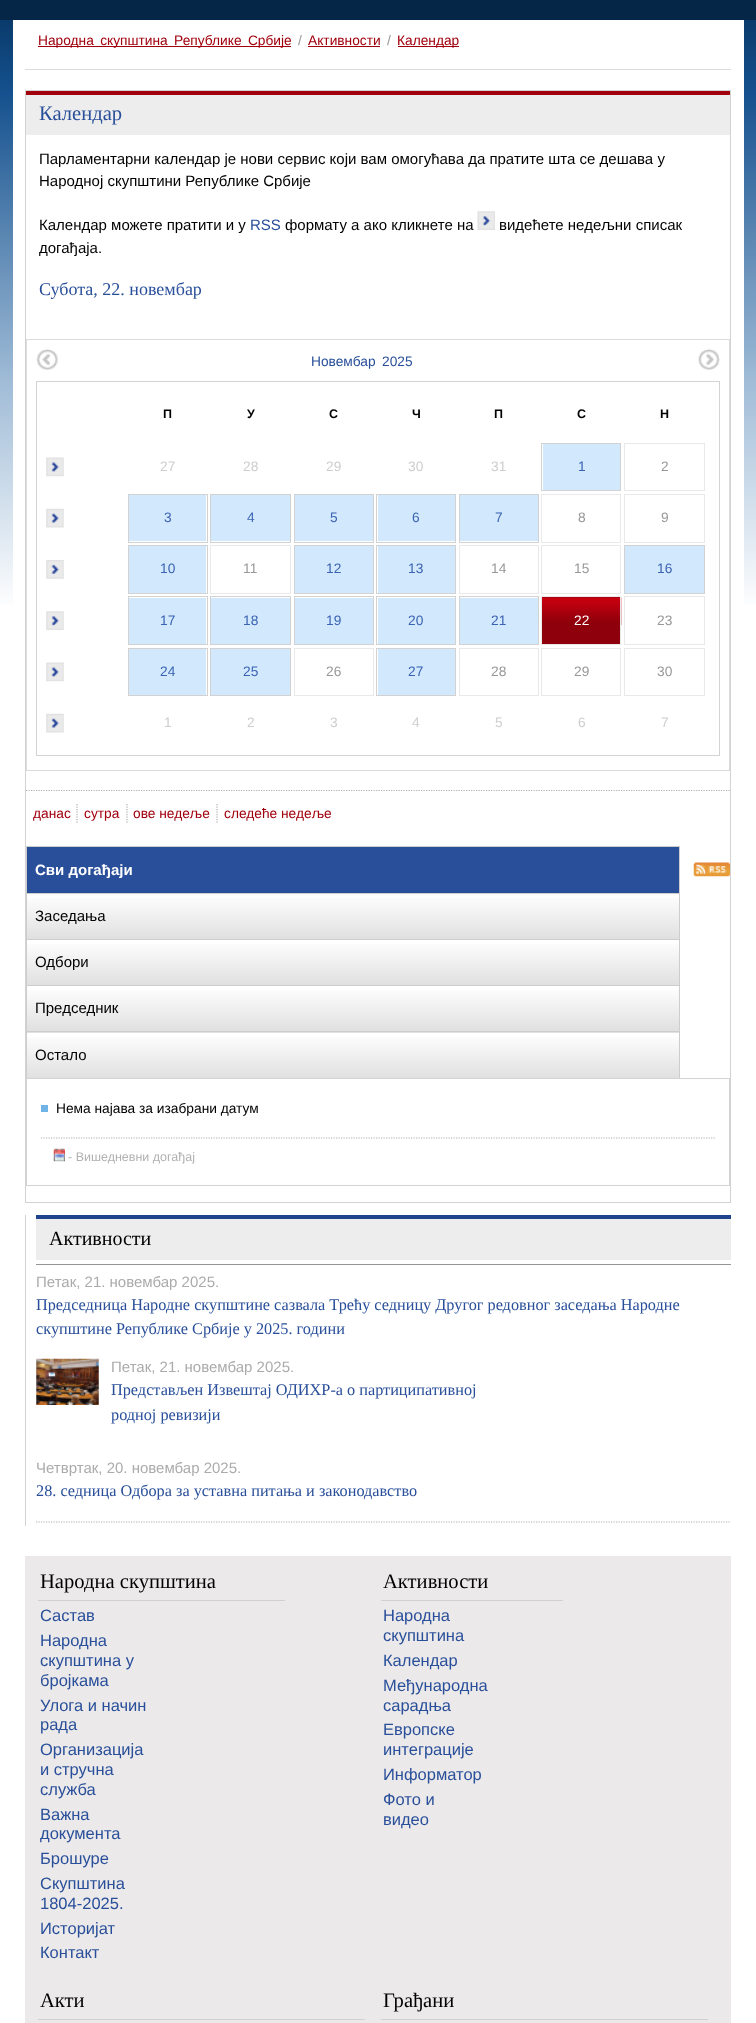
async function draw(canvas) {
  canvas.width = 756;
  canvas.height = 2023;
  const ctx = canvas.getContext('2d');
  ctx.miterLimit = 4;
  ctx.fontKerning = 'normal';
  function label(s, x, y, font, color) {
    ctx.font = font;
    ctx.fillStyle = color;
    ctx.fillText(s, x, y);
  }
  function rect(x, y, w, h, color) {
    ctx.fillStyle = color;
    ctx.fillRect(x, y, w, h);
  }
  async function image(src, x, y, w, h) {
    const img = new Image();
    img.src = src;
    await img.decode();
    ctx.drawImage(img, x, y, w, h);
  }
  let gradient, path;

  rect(0, 0, 756, 2023, '#fff');
  gradient = ctx.createLinearGradient(378, -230, 378, 620);
  gradient.addColorStop(0.15, '#082c50');
  gradient.addColorStop(0.28, '#083766');
  gradient.addColorStop(0.38, '#15518e');
  gradient.addColorStop(0.72, '#a0bcd7');
  gradient.addColorStop(0.99, '#fff');
  ctx.fillStyle = gradient;
  ctx.fillRect(0, 20, 756, 585);
  rect(0, 0, 756, 20, '#052647');
  rect(13, 20, 731, 585, '#fff');
  rect(25, 69, 706, 1, '#dbdbdb');
  rect(38, 46, 253, 1, '#a1010d');
  ctx.wordSpacing = '2.5px';
  label('Народна скупштина Републике Србије', 38, 45, '13.75px Liberation Sans', '#a1010d');
  ctx.wordSpacing = '0px';
  label('/', 298, 45, '13.75px Liberation Sans', '#989898');
  label('Активности', 308, 45, '13.75px Liberation Sans', '#a1010d');
  rect(308, 46, 72, 1, '#a1010d');
  label('/', 387, 45, '13.75px Liberation Sans', '#989898');
  rect(398, 46, 61, 1, '#a1010d');
  label('Календар', 397, 45, '13.75px Liberation Sans', '#a1010d');
  ctx.strokeStyle = '#d4d3d3';
  ctx.strokeRect(25.5, 90.5, 705, 1112);
  rect(26, 95, 704, 40, '#ededed');
  rect(26, 91, 704, 4, '#a1010d');
  label('Календар', 39, 120, '20.6px Liberation Serif', '#294f9a');
  label('Парламентарни календар је нови сервис који вам омогућава да пратите шта се дешава у', 39, 164, '15px Liberation Sans', '#000');
  label('Народној скупштини Републике Србије', 39, 186, '15px Liberation Sans', '#000');
  label('Календар можете пратити и у', 39, 230, '15px Liberation Sans', '#000');
  label('RSS', 250, 230, '15px Liberation Sans', '#294f9a');
  label('формату а ако кликнете на', 285, 230, '15px Liberation Sans', '#000');
  await image('assets/img1.png', 477, 211, 18, 19);
  label('видећете недељни списак', 499, 230, '15px Liberation Sans', '#000');
  label('догађаја.', 39, 253, '15px Liberation Sans', '#000');
  label('Субота, 22. новембар', 39, 295, '18px Liberation Serif', '#294f9a');
  ctx.strokeStyle = '#dbdbdb';
  ctx.strokeRect(26.5, 339.5, 703, 431);
  await image('assets/img2.png', 36, 348, 22, 22);
  label('Новембар', 311, 366, '13.75px Liberation Sans', '#294f9a');
  label('2025', 382, 366, '13.75px Liberation Sans', '#294f9a');
  await image('assets/img3.png', 698, 348, 22, 22);
  ctx.strokeStyle = '#d4d3d3';
  ctx.strokeRect(36.5, 381.5, 683, 374);
  label('П', 163, 418, 'bold 12.5px Liberation Sans', '#000');
  label('У', 247, 418, 'bold 12.5px Liberation Sans', '#000');
  label('С', 329, 418, 'bold 12.5px Liberation Sans', '#000');
  label('Ч', 412, 418, 'bold 12.5px Liberation Sans', '#000');
  label('П', 494, 418, 'bold 12.5px Liberation Sans', '#000');
  label('С', 577, 418, 'bold 12.5px Liberation Sans', '#000');
  label('Н', 660, 418, 'bold 12.5px Liberation Sans', '#000');
  await image('assets/img4.png', 46, 457, 18, 20);
  label('27', 160, 471, '13.75px Liberation Sans', '#cecece');
  label('28', 243, 471, '13.75px Liberation Sans', '#cecece');
  label('29', 326, 471, '13.75px Liberation Sans', '#cecece');
  label('30', 408, 471, '13.75px Liberation Sans', '#cecece');
  label('31', 491, 471, '13.75px Liberation Sans', '#cecece');
  ctx.strokeStyle = '#d3d2d2';
  ctx.strokeRect(541.5, 443.5, 79, 47);
  rect(543, 444, 77, 46, '#d2e8fc');
  label('1', 578, 471, '13.75px Liberation Sans', '#3b63b3');
  ctx.strokeStyle = '#e9e9e9';
  ctx.strokeRect(624.5, 443.5, 80, 47);
  label('2', 661, 471, '13.75px Liberation Sans', '#989898');
  await image('assets/img5.png', 46, 508, 18, 20);
  ctx.strokeStyle = '#d3d2d2';
  ctx.strokeRect(128.5, 494.5, 79, 48);
  rect(129, 495, 77, 46, '#d2e8fc');
  label('3', 164, 522, '13.75px Liberation Sans', '#3b63b3');
  ctx.strokeRect(210.5, 494.5, 80, 48);
  rect(211, 495, 79, 46, '#d2e8fc');
  label('4', 247, 522, '13.75px Liberation Sans', '#3b63b3');
  ctx.strokeRect(294.5, 494.5, 79, 48);
  rect(295, 495, 78, 46, '#d2e8fc');
  label('5', 330, 522, '13.75px Liberation Sans', '#3b63b3');
  ctx.strokeRect(376.5, 494.5, 79, 48);
  rect(378, 495, 77, 46, '#d2e8fc');
  label('6', 412, 522, '13.75px Liberation Sans', '#3b63b3');
  ctx.strokeRect(459.5, 494.5, 79, 48);
  rect(460, 495, 78, 46, '#d2e8fc');
  label('7', 495, 522, '13.75px Liberation Sans', '#3b63b3');
  ctx.strokeStyle = '#e9e9e9';
  ctx.strokeRect(541.5, 494.5, 79, 48);
  label('8', 578, 522, '13.75px Liberation Sans', '#989898');
  ctx.strokeRect(624.5, 494.5, 80, 48);
  label('9', 661, 522, '13.75px Liberation Sans', '#989898');
  await image('assets/img6.png', 46, 560, 18, 19);
  ctx.strokeStyle = '#d3d2d2';
  ctx.strokeRect(128.5, 545.5, 79, 48);
  rect(129, 546, 77, 47, '#d2e8fc');
  label('10', 160, 573, '13.75px Liberation Sans', '#3b63b3');
  ctx.strokeStyle = '#e9e9e9';
  ctx.strokeRect(210.5, 545.5, 80, 48);
  label('11', 243, 573, '13.75px Liberation Sans', '#989898');
  ctx.strokeStyle = '#d3d2d2';
  ctx.strokeRect(294.5, 545.5, 79, 48);
  rect(295, 546, 78, 47, '#d2e8fc');
  label('12', 326, 573, '13.75px Liberation Sans', '#3b63b3');
  ctx.strokeRect(376.5, 545.5, 79, 48);
  rect(378, 546, 77, 47, '#d2e8fc');
  label('13', 408, 573, '13.75px Liberation Sans', '#3b63b3');
  ctx.strokeStyle = '#e9e9e9';
  ctx.strokeRect(459.5, 545.5, 79, 48);
  label('14', 491, 573, '13.75px Liberation Sans', '#989898');
  ctx.strokeRect(541.5, 545.5, 79, 48);
  label('15', 574, 573, '13.75px Liberation Sans', '#989898');
  ctx.strokeStyle = '#d3d2d2';
  ctx.strokeRect(624.5, 545.5, 80, 48);
  rect(625, 546, 79, 47, '#d2e8fc');
  label('16', 657, 573, '13.75px Liberation Sans', '#3b63b3');
  await image('assets/img7.png', 46, 611, 18, 19);
  ctx.strokeRect(128.5, 596.5, 79, 48);
  rect(129, 598, 77, 46, '#d2e8fc');
  label('17', 160, 625, '13.75px Liberation Sans', '#3b63b3');
  ctx.strokeRect(210.5, 596.5, 80, 48);
  rect(211, 598, 79, 46, '#d2e8fc');
  label('18', 243, 625, '13.75px Liberation Sans', '#3b63b3');
  ctx.strokeRect(294.5, 596.5, 79, 48);
  rect(295, 598, 78, 46, '#d2e8fc');
  label('19', 326, 625, '13.75px Liberation Sans', '#3b63b3');
  ctx.strokeRect(376.5, 596.5, 79, 48);
  rect(378, 598, 77, 46, '#d2e8fc');
  label('20', 408, 625, '13.75px Liberation Sans', '#3b63b3');
  ctx.strokeRect(459.5, 596.5, 79, 48);
  rect(460, 598, 78, 46, '#d2e8fc');
  label('21', 491, 625, '13.75px Liberation Sans', '#3b63b3');
  rect(542, 597, 78, 47, '#8e000b');
  await image('assets/img8.png', 542, 597, 80, 28);
  ctx.strokeStyle = '#e9e9e9';
  ctx.strokeRect(541.5, 596.5, 79, 48);
  label('22', 574, 625, '13.75px Liberation Sans', '#fff');
  ctx.strokeRect(624.5, 596.5, 80, 48);
  label('23', 657, 625, '13.75px Liberation Sans', '#989898');
  await image('assets/img4.png', 46, 662, 18, 20);
  ctx.strokeStyle = '#d3d2d2';
  ctx.strokeRect(128.5, 648.5, 79, 47);
  rect(129, 649, 77, 46, '#d2e8fc');
  label('24', 160, 676, '13.75px Liberation Sans', '#3b63b3');
  ctx.strokeRect(210.5, 648.5, 80, 47);
  rect(211, 649, 79, 46, '#d2e8fc');
  label('25', 243, 676, '13.75px Liberation Sans', '#3b63b3');
  ctx.strokeStyle = '#e9e9e9';
  ctx.strokeRect(294.5, 648.5, 79, 47);
  label('26', 326, 676, '13.75px Liberation Sans', '#989898');
  ctx.strokeStyle = '#d3d2d2';
  ctx.strokeRect(376.5, 648.5, 79, 47);
  rect(378, 649, 77, 46, '#d2e8fc');
  label('27', 408, 676, '13.75px Liberation Sans', '#3b63b3');
  ctx.strokeStyle = '#e9e9e9';
  ctx.strokeRect(459.5, 648.5, 79, 47);
  label('28', 491, 676, '13.75px Liberation Sans', '#989898');
  ctx.strokeRect(541.5, 648.5, 79, 47);
  label('29', 574, 676, '13.75px Liberation Sans', '#989898');
  ctx.strokeRect(624.5, 648.5, 80, 47);
  label('30', 657, 676, '13.75px Liberation Sans', '#989898');
  await image('assets/img5.png', 46, 713, 18, 20);
  label('1', 164, 727, '13.75px Liberation Sans', '#cecece');
  label('2', 247, 727, '13.75px Liberation Sans', '#cecece');
  label('3', 330, 727, '13.75px Liberation Sans', '#cecece');
  label('4', 412, 727, '13.75px Liberation Sans', '#cecece');
  label('5', 495, 727, '13.75px Liberation Sans', '#cecece');
  label('6', 578, 727, '13.75px Liberation Sans', '#cecece');
  label('7', 661, 727, '13.75px Liberation Sans', '#cecece');
  path = new Path2D('M26 790.5H730');
  ctx.strokeStyle = '#b2b1b1';
  ctx.lineWidth = 1.2;
  ctx.setLineDash([1.25, 1.25]);
  ctx.stroke(path);
  label('данас', 33, 818, '13.75px Liberation Sans', '#a1010d');
  path = new Path2D('M77 804V824');
  ctx.stroke(path);
  label('сутра', 84, 818, '13.75px Liberation Sans', '#a1010d');
  path = new Path2D('M127 804V824');
  ctx.stroke(path);
  label('ове недеље', 133, 818, '13.75px Liberation Sans', '#a1010d');
  path = new Path2D('M217 804V824');
  ctx.stroke(path);
  label('следеће недеље', 224, 818, '13.75px Liberation Sans', '#a1010d');
  rect(26, 1078, 704, 1, '#d4d3d3');
  rect(27, 847, 652, 46, '#294f9a');
  rect(26, 846, 654, 1, '#cdcdcd');
  rect(679, 846, 1, 47, '#cdcdcd');
  rect(26, 846, 1, 47, '#cdcdcd');
  label('Сви догађаји', 35, 875, 'bold 15px Liberation Sans', '#fff');
  gradient = ctx.createLinearGradient(353, 894, 353, 939);
  gradient.addColorStop(0, '#fff');
  gradient.addColorStop(1, '#e0e0e0');
  ctx.fillStyle = gradient;
  ctx.fillRect(27, 898, 652, 41);
  rect(26, 893, 654, 1, '#cdcdcd');
  rect(679, 893, 1, 46, '#cdcdcd');
  rect(26, 893, 1, 46, '#cdcdcd');
  label('Заседања', 35, 921, '15px Liberation Sans', '#000');
  gradient = ctx.createLinearGradient(353, 940, 353, 985);
  gradient.addColorStop(0, '#fff');
  gradient.addColorStop(1, '#e0e0e0');
  ctx.fillStyle = gradient;
  ctx.fillRect(27, 944, 652, 41);
  rect(26, 939, 654, 1, '#cdcdcd');
  rect(679, 939, 1, 46, '#cdcdcd');
  rect(26, 939, 1, 46, '#cdcdcd');
  label('Одбори', 35, 967, '15px Liberation Sans', '#000');
  gradient = ctx.createLinearGradient(353, 986, 353, 1031);
  gradient.addColorStop(0, '#fff');
  gradient.addColorStop(1, '#e0e0e0');
  ctx.fillStyle = gradient;
  ctx.fillRect(27, 990, 652, 41);
  rect(26, 985, 654, 1, '#cdcdcd');
  rect(679, 985, 1, 46, '#cdcdcd');
  rect(26, 985, 1, 46, '#cdcdcd');
  label('Председник', 35, 1013, '15px Liberation Sans', '#000');
  gradient = ctx.createLinearGradient(353, 988, 353, 1033);
  gradient.addColorStop(0, '#fff');
  gradient.addColorStop(1, '#e0e0e0');
  ctx.fillStyle = gradient;
  ctx.fillRect(26, 1032, 654, 1);
  gradient = ctx.createLinearGradient(353, 1033, 353, 1078);
  gradient.addColorStop(0, '#fff');
  gradient.addColorStop(1, '#e0e0e0');
  ctx.fillStyle = gradient;
  ctx.fillRect(27, 1037, 652, 41);
  rect(26, 1031, 654, 1, '#cdcdcd');
  rect(679, 1031, 1, 47, '#cdcdcd');
  rect(26, 1031, 1, 47, '#cdcdcd');
  label('Остало', 35, 1060, '15px Liberation Sans', '#000');
  await image('assets/img9.png', 693, 862, 37, 15);
  rect(729, 1079, 1, 107, '#d4d3d3');
  rect(26, 1185, 704, 1, '#d4d3d3');
  rect(26, 1079, 1, 107, '#d4d3d3');
  path = new Path2D('M41 1138H715');
  ctx.stroke(path);
  rect(41, 1105, 7, 7, '#70b4e7');
  label('Нема најава за изабрани датум', 56, 1113, '13.75px Liberation Sans', '#000');
  await image('assets/img10.png', 53, 1148, 12, 14);
  label('- Вишедневни догађај', 68, 1161, '12.5px Liberation Sans', '#b1b1b1');
  rect(25, 1215, 1, 311, '#d4d3d3');
  path = new Path2D('M36 1522H731');
  ctx.stroke(path);
  rect(36, 1215, 695, 4, '#1f438d');
  rect(36, 1264, 695, 1, '#959595');
  rect(36, 1219, 695, 41, '#ededed');
  label('Активности', 49, 1245, '20px Liberation Serif', '#000');
  label('Петак, 21. новембар 2025.', 36, 1287, '15px Liberation Sans', '#ababab');
  label('Председница Народне скупштине сазвала Трећу седницу Другог редовног заседања Народне', 36, 1310, '16.25px Liberation Serif', '#294f9a');
  label('скупштине Републике Србије у 2025. години', 36, 1334, '16.25px Liberation Serif', '#294f9a');
  await image('assets/img11.png', 36, 1358, 63, 47);
  label('Петак, 21. новембар 2025.', 111, 1372, '15px Liberation Sans', '#ababab');
  label('Представљен Извештај ОДИХР-а о партиципативној', 111, 1395, '16.25px Liberation Serif', '#294f9a');
  label('родној ревизији', 111, 1420, '16.25px Liberation Serif', '#294f9a');
  label('Четвртак, 20. новембар 2025.', 36, 1473, '15px Liberation Sans', '#ababab');
  label('28. седница Одбора за уставна питања и законодавство', 36, 1496, '16.25px Liberation Serif', '#294f9a');
  rect(25, 1556, 706, 467, '#ebe9e9');
  label('Народна скупштина', 40, 1588, '20.6px Liberation Serif', '#000');
  rect(38, 1600, 247, 1, '#d1d1d1');
  label('Састав', 40, 1621, '16.5px Liberation Sans', '#294f9a');
  label('Народна', 40, 1646, '16.5px Liberation Sans', '#294f9a');
  label('скупштина у', 40, 1666, '16.5px Liberation Sans', '#294f9a');
  label('бројкама', 40, 1686, '16.5px Liberation Sans', '#294f9a');
  label('Улога и начин', 40, 1711, '16.5px Liberation Sans', '#294f9a');
  label('рада', 40, 1730, '16.5px Liberation Sans', '#294f9a');
  label('Организација', 40, 1755, '16.5px Liberation Sans', '#294f9a');
  label('и стручна', 40, 1775, '16.5px Liberation Sans', '#294f9a');
  label('служба', 40, 1795, '16.5px Liberation Sans', '#294f9a');
  label('Важна', 40, 1820, '16.5px Liberation Sans', '#294f9a');
  label('документа', 40, 1839, '16.5px Liberation Sans', '#294f9a');
  label('Брошуре', 40, 1864, '16.5px Liberation Sans', '#294f9a');
  label('Скупштина', 40, 1889, '16.5px Liberation Sans', '#294f9a');
  label('1804-2025.', 40, 1909, '16.5px Liberation Sans', '#294f9a');
  label('Историјат', 40, 1934, '16.5px Liberation Sans', '#294f9a');
  label('Контакт', 40, 1958, '16.5px Liberation Sans', '#294f9a');
  label('Активности', 383, 1588, '20.6px Liberation Serif', '#000');
  rect(381, 1600, 182, 1, '#d1d1d1');
  label('Народна', 383, 1621, '16.5px Liberation Sans', '#294f9a');
  label('скупштина', 383, 1641, '16.5px Liberation Sans', '#294f9a');
  label('Календар', 383, 1666, '16.5px Liberation Sans', '#294f9a');
  label('Међународна', 383, 1691, '16.5px Liberation Sans', '#294f9a');
  label('сарадња', 383, 1711, '16.5px Liberation Sans', '#294f9a');
  label('Европске', 383, 1735, '16.5px Liberation Sans', '#294f9a');
  label('интеграције', 383, 1755, '16.5px Liberation Sans', '#294f9a');
  label('Информатор', 383, 1780, '16.5px Liberation Sans', '#294f9a');
  label('Фото и', 383, 1805, '16.5px Liberation Sans', '#294f9a');
  label('видео', 383, 1825, '16.5px Liberation Sans', '#294f9a');
  label('Акти', 40, 2007, '20.6px Liberation Serif', '#000');
  rect(38, 2019, 327, 1, '#d1d1d1');
  label('Грађани', 383, 2007, '20.6px Liberation Serif', '#000');
  rect(381, 2019, 327, 1, '#d1d1d1');
}

draw(document.querySelector('canvas'));
